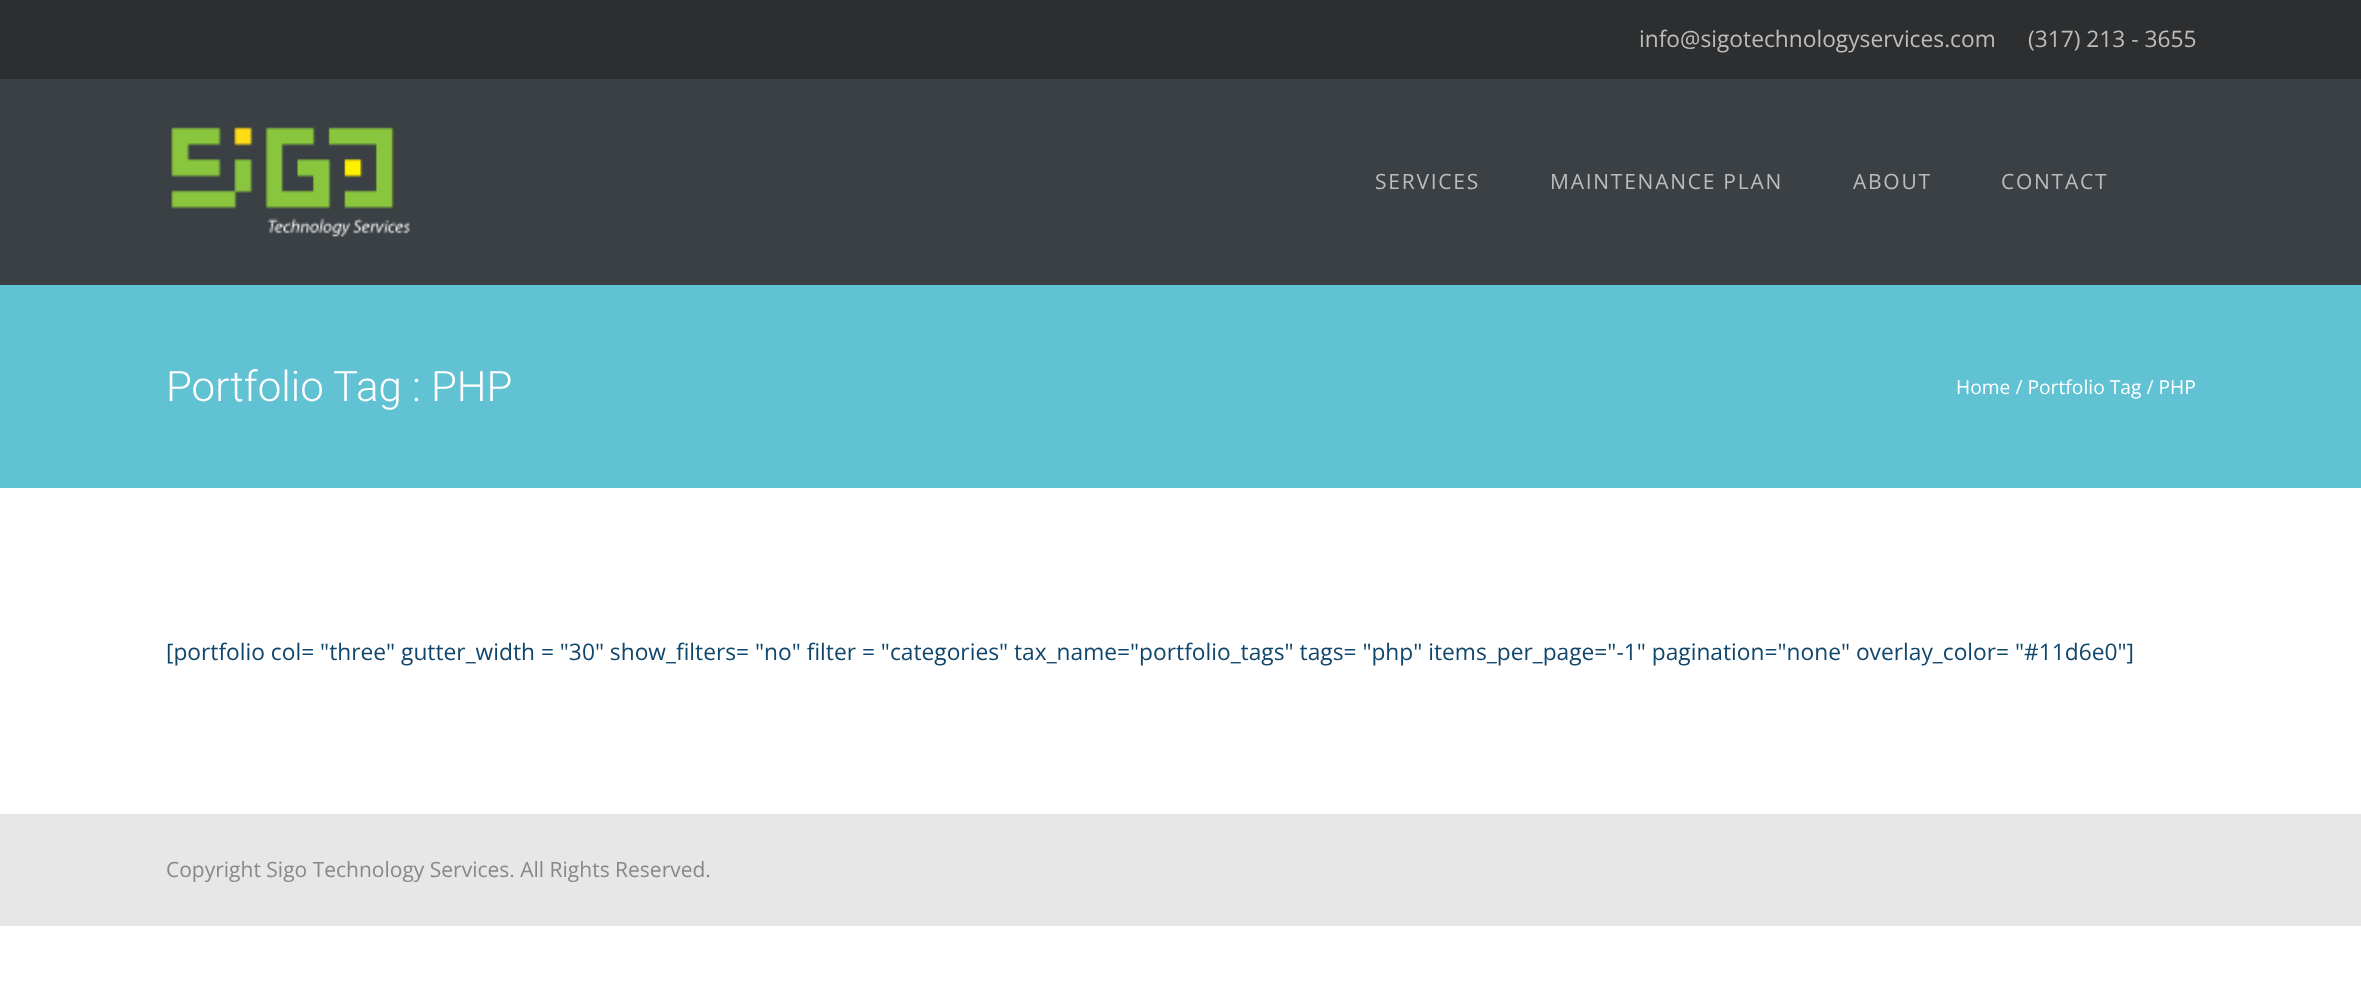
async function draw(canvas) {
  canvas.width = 2361;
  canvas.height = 982;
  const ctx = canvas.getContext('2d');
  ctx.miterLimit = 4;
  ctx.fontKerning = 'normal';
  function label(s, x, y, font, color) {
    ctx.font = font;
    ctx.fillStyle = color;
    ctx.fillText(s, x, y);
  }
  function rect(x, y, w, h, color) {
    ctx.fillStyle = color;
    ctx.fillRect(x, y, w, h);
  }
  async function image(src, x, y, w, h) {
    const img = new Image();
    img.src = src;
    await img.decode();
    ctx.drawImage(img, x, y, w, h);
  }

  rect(0, 0, 2361, 982, '#fff');
  rect(0, 0, 2361, 79, '#2c2e30');
  label('info@sigotechnologyservices.com', 1639, 47, '22.75px Open Sans', '#bcbcbc');
  label('(317) 213 - 3655', 2028, 47, '22.75px Open Sans', '#bcbcbc');
  rect(0, 79, 2361, 206, '#3b4044');
  await image('assets/img1.png', 171, 127, 239, 110);
  ctx.letterSpacing = '1.75px';
  label('SERVICES', 1375, 189, '21px Open Sans', '#bcbcbc');
  label('MAINTENANCE PLAN', 1550, 189, '21px Open Sans', '#bcbcbc');
  label('ABOUT', 1853, 189, '21px Open Sans', '#bcbcbc');
  label('CONTACT', 2001, 189, '21px Open Sans', '#bcbcbc');
  rect(0, 285, 2361, 203, '#60c2d3');
  ctx.letterSpacing = '0px';
  label('Portfolio Tag : PHP', 166, 401, '300 42px Roboto', '#fff');
  label('Home / Portfolio Tag / PHP', 1956, 394, '19.25px Open Sans', '#fff');
  label('[portfolio col= "three" gutter_width = "30" show_filters= "no" filter = "categories" tax_name="portfolio_tags" tags= "php" items_per_page="-1" pagination="none" overlay_color= "#11d6e0"]', 166, 660, '22.75px Open Sans', '#10466b');
  rect(0, 814, 2361, 112, '#e7e7e7');
  label('Copyright Sigo Technology Services. All Rights Reserved.', 166, 877, '21px Open Sans', '#888');
}

draw(document.querySelector('canvas'));
